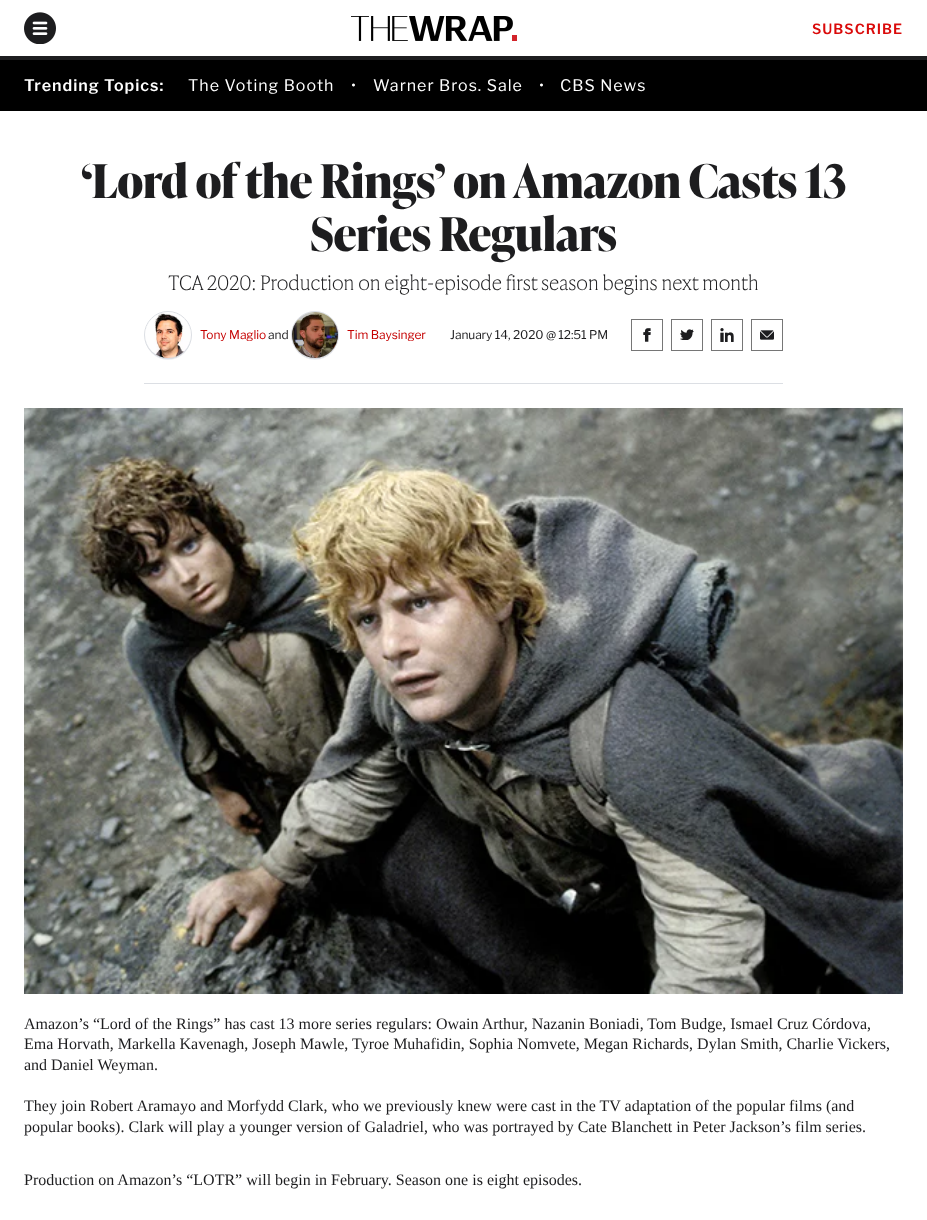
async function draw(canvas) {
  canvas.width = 927;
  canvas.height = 1220;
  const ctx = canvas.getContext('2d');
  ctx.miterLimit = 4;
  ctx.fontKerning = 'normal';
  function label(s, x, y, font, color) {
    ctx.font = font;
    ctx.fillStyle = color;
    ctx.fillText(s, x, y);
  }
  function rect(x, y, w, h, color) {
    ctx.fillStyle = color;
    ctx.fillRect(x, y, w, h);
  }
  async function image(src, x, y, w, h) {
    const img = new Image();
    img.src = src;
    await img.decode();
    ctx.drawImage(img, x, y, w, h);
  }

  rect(0, 0, 927, 1220, '#fff');
  rect(0, 56, 927, 4, '#1d1d1f');
  await image('assets/img1.png', 24, 12, 32, 32);
  await image('assets/img2.png', 351, 16, 166, 25);
  ctx.letterSpacing = '1px';
  label('SUBSCRIBE', 812, 34, '600 14px Libre Franklin', '#da0a0a');
  rect(0, 60, 927, 51, '#000');
  label('Trending Topics:', 24, 91, '600 16px Libre Franklin', '#fff');
  label('The Voting Booth', 188, 91, '16px Libre Franklin', '#fff');
  label('•', 351, 91, '16px Libre Franklin', '#fff');
  label('Warner Bros. Sale', 373, 91, '16px Libre Franklin', '#fff');
  label('•', 539, 91, '16px Libre Franklin', '#fff');
  label('CBS News', 560, 91, '16px Libre Franklin', '#fff');
  ctx.letterSpacing = '-0.5px';
  label('‘Lord of the Rings’ on Amazon Casts 13', 81, 198, 'bold 46.4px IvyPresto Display', '#1d1d1f');
  label('Series Regulars', 310, 251, 'bold 46.4px IvyPresto Display', '#1d1d1f');
  label('TCA 2020: Production on eight-episode first season begins next month', 168, 290, '100 20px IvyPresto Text', '#1d1d1f');
  rect(144, 383, 639, 1, '#dcdfe4');
  ctx.fillStyle = '#18274b14';
  ctx.filter = 'blur(0.5px)';
  ctx.beginPath();
  ctx.roundRect(145, 313, 46, 47, 23);
  ctx.fill();
  ctx.filter = 'none';
  ctx.fillStyle = '#18274b1f';
  ctx.filter = 'blur(0.5px)';
  ctx.beginPath();
  ctx.roundRect(145, 312, 46, 47, 23);
  ctx.fill();
  ctx.filter = 'none';
  ctx.beginPath();
  ctx.arc(168, 335, 23.5, 0, 2 * Math.PI);
  ctx.strokeStyle = '#dcdfe4';
  ctx.stroke();
  await image('assets/img3.png', 145, 312, 46, 46);
  ctx.letterSpacing = '-0.1px';
  label('Tony Maglio', 200, 339, '12px Libre Franklin', '#c50000');
  label('and', 268, 339, '12px Libre Franklin', '#1d1d1f');
  ctx.fillStyle = '#18274b14';
  ctx.filter = 'blur(0.5px)';
  ctx.beginPath();
  ctx.roundRect(292, 313, 46, 47, 23);
  ctx.fill();
  ctx.filter = 'none';
  ctx.fillStyle = '#18274b1f';
  ctx.filter = 'blur(0.5px)';
  ctx.beginPath();
  ctx.roundRect(292, 312, 46, 47, 23);
  ctx.fill();
  ctx.filter = 'none';
  ctx.beginPath();
  ctx.arc(315, 335, 23.5, 0, 2 * Math.PI);
  ctx.stroke();
  await image('assets/img4.png', 292, 312, 46, 46);
  label('Tim Baysinger', 347, 339, '12px Libre Franklin', '#c50000');
  label('January 14, 2020 @ 12:51 PM', 450, 339, '12px Libre Franklin', '#1d1d1f');
  ctx.strokeStyle = '#767676';
  ctx.strokeRect(631.5, 319.5, 31, 31);
  await image('assets/img5.png', 643, 328, 8, 14);
  ctx.strokeRect(671.5, 319.5, 31, 31);
  await image('assets/img6.png', 680, 329, 14, 11);
  ctx.strokeRect(711.5, 319.5, 31, 31);
  await image('assets/img7.png', 720, 328, 14, 14);
  ctx.strokeRect(751.5, 319.5, 31, 31);
  await image('assets/img8.png', 760, 330, 14, 10);
  await image('assets/img9.png', 24, 408, 879, 586);
  ctx.letterSpacing = '0px';
  label('Amazon’s “Lord of the Rings” has cast 13 more series regulars: Owain Arthur, Nazanin Boniadi, Tom Budge, Ismael Cruz Córdova,', 24, 1029, '16px Liberation Serif', '#1d1d1f');
  label('Ema Horvath, Markella Kavenagh, Joseph Mawle, Tyroe Muhafidin, Sophia Nomvete, Megan Richards, Dylan Smith, Charlie Vickers,', 24, 1049, '16px Liberation Serif', '#1d1d1f');
  label('and Daniel Weyman.', 24, 1070, '16px Liberation Serif', '#1d1d1f');
  label('They join Robert Aramayo and Morfydd Clark, who we previously knew were cast in the TV adaptation of the popular films (and', 24, 1111, '16px Liberation Serif', '#1d1d1f');
  label('popular books). Clark will play a younger version of Galadriel, who was portrayed by Cate Blanchett in Peter Jackson’s film series.', 24, 1132, '16px Liberation Serif', '#1d1d1f');
  label('Production on Amazon’s “LOTR” will begin in February. Season one is eight episodes.', 24, 1185, '16px Liberation Serif', '#1d1d1f');
}

draw(document.querySelector('canvas'));
